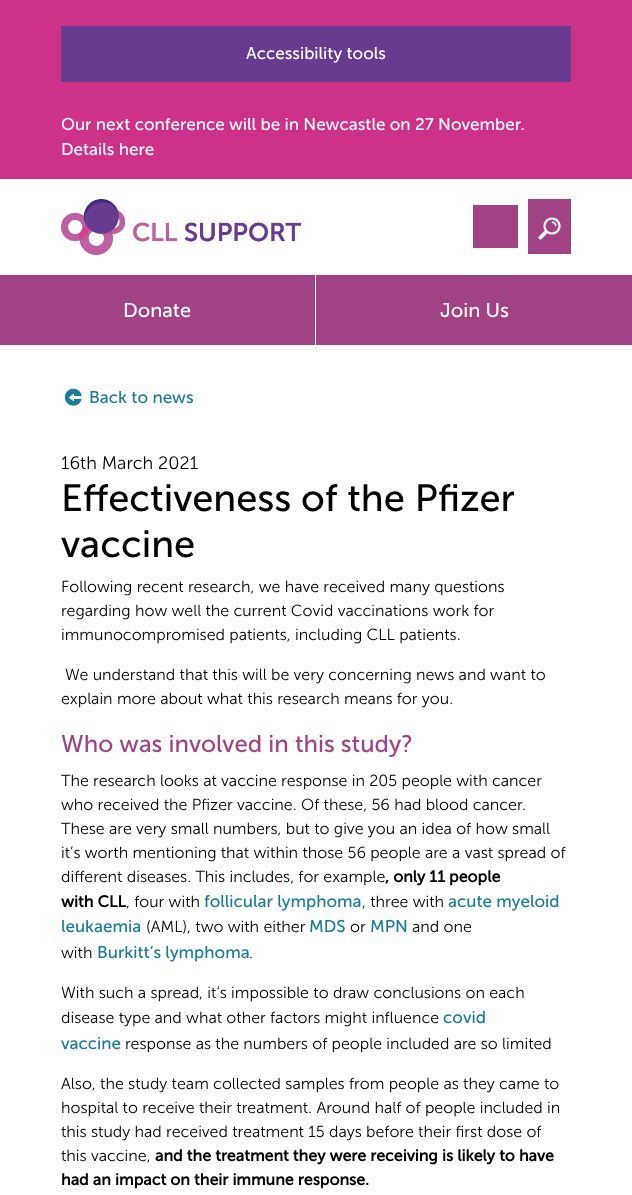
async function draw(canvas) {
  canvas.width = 632;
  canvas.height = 1195;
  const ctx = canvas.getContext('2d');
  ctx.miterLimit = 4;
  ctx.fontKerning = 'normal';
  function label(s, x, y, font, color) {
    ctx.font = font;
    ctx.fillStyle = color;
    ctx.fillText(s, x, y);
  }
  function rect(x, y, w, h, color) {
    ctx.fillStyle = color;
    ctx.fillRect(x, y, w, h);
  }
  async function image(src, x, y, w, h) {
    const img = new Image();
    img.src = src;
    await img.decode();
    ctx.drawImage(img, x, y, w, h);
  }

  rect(0, 0, 632, 1195, '#fff');
  rect(0, 0, 632, 179, '#ce3288');
  rect(61, 26, 510, 56, '#673c90');
  label('Accessibility tools', 246, 59, '17px "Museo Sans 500"', '#fff');
  label('Our next conference will be in Newcastle on 27 November.', 61, 130, '17px "Museo Sans 500"', '#fff');
  label('Details here', 61, 155, '17px "Museo Sans 500"', '#fff');
  await image('assets/img1.png', 61, 199, 240, 56);
  rect(473, 205, 45, 43, '#a14284');
  rect(528, 199, 43, 55, '#a14284');
  await image('assets/img2.png', 538, 217, 23, 23);
  rect(0, 275, 632, 70, '#a14284');
  rect(315, 275, 1, 70, '#fff');
  label('Donate', 123, 317, '20px "Museo Sans 500"', '#fff');
  label('Join Us', 440, 317, '20px "Museo Sans 500"', '#fff');
  await image('assets/img3.png', 64, 388, 18, 18);
  label('Back to news', 89, 403, '17px "Museo Sans 500"', '#177b99');
  label('16th March 2021', 61, 469, '300 18px "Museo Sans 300"', '#000');
  label('Effectiveness of the Pfizer', 61, 511, '38px "Museo Sans 500"', '#000');
  label('vaccine', 61, 557, '38px "Museo Sans 500"', '#000');
  label('Following recent research, we have received many questions', 61, 592, '300 16px "Museo Sans 300"', '#000');
  label('regarding how well the current Covid vaccinations work for', 61, 616, '300 16px "Museo Sans 300"', '#000');
  label('immunocompromised patients, including CLL patients.', 61, 640, '300 16px "Museo Sans 300"', '#000');
  label('We understand that this will be very concerning news and want to', 65, 680, '300 16px "Museo Sans 300"', '#000');
  label('explain more about what this research means for you.', 61, 704, '300 16px "Museo Sans 300"', '#000');
  label('Who was involved in this study?', 61, 752, '24px "Museo Sans 500"', '#a14284');
  label('The research looks at vaccine response in 205 people with cancer', 61, 786, '300 16px "Museo Sans 300"', '#000');
  label('who received the Pfizer vaccine. Of these, 56 had blood cancer.', 61, 810, '300 16px "Museo Sans 300"', '#000');
  label('These are very small numbers, but to give you an idea of how small', 61, 834, '300 16px "Museo Sans 300"', '#000');
  label('it’s worth mentioning that within those 56 people are a vast spread of', 61, 858, '300 16px "Museo Sans 300"', '#000');
  label('different diseases. This includes, for example', 61, 882, '300 16px "Museo Sans 300"', '#000');
  label(', only 11 people', 385, 882, 'bold 16px "Museo Sans 500"', '#000');
  label('with CLL', 61, 907, 'bold 16px "Museo Sans 500"', '#000');
  label(', four with', 126, 907, '300 16px "Museo Sans 300"', '#000');
  label('follicular lymphoma', 204, 907, '17px "Museo Sans 500"', '#177b99');
  label(', three with', 362, 907, '300 16px "Museo Sans 300"', '#000');
  label('acute myeloid', 448, 907, '17px "Museo Sans 500"', '#177b99');
  label('leukaemia', 61, 932, '17px "Museo Sans 500"', '#177b99');
  label('(AML), two with either', 146, 932, '300 16px "Museo Sans 300"', '#000');
  label('MDS', 309, 932, '17px "Museo Sans 500"', '#177b99');
  label('or', 350, 932, '300 16px "Museo Sans 300"', '#000');
  label('MPN', 370, 932, '17px "Museo Sans 500"', '#177b99');
  label('and one', 412, 932, '300 16px "Museo Sans 300"', '#000');
  label('with', 61, 958, '300 16px "Museo Sans 300"', '#000');
  label('Burkitt’s lymphoma', 97, 958, '17px "Museo Sans 500"', '#177b99');
  label('.', 249, 958, '300 16px "Museo Sans 300"', '#000');
  label('With such a spread, it’s impossible to draw conclusions on each', 61, 998, '300 16px "Museo Sans 300"', '#000');
  label('disease type and what other factors might influence', 61, 1023, '300 16px "Museo Sans 300"', '#000');
  label('covid', 443, 1023, '17px "Museo Sans 500"', '#177b99');
  label('vaccine', 61, 1049, '17px "Museo Sans 500"', '#177b99');
  label('response as the numbers of people included are so limited', 125, 1049, '300 16px "Museo Sans 300"', '#000');
  label('Also, the study team collected samples from people as they came to', 61, 1089, '300 16px "Museo Sans 300"', '#000');
  label('hospital to receive their treatment. Around half of people included in', 61, 1113, '300 16px "Museo Sans 300"', '#000');
  label('this study had received treatment 15 days before their first dose of', 61, 1137, '300 16px "Museo Sans 300"', '#000');
  label('this vaccine,', 61, 1161, '300 16px "Museo Sans 300"', '#000');
  label('and the treatment they were receiving is likely to have', 155, 1161, 'bold 16px "Museo Sans 500"', '#000');
  label('had an impact on their immune response.', 61, 1185, 'bold 16px "Museo Sans 500"', '#000');
}

draw(document.querySelector('canvas'));
